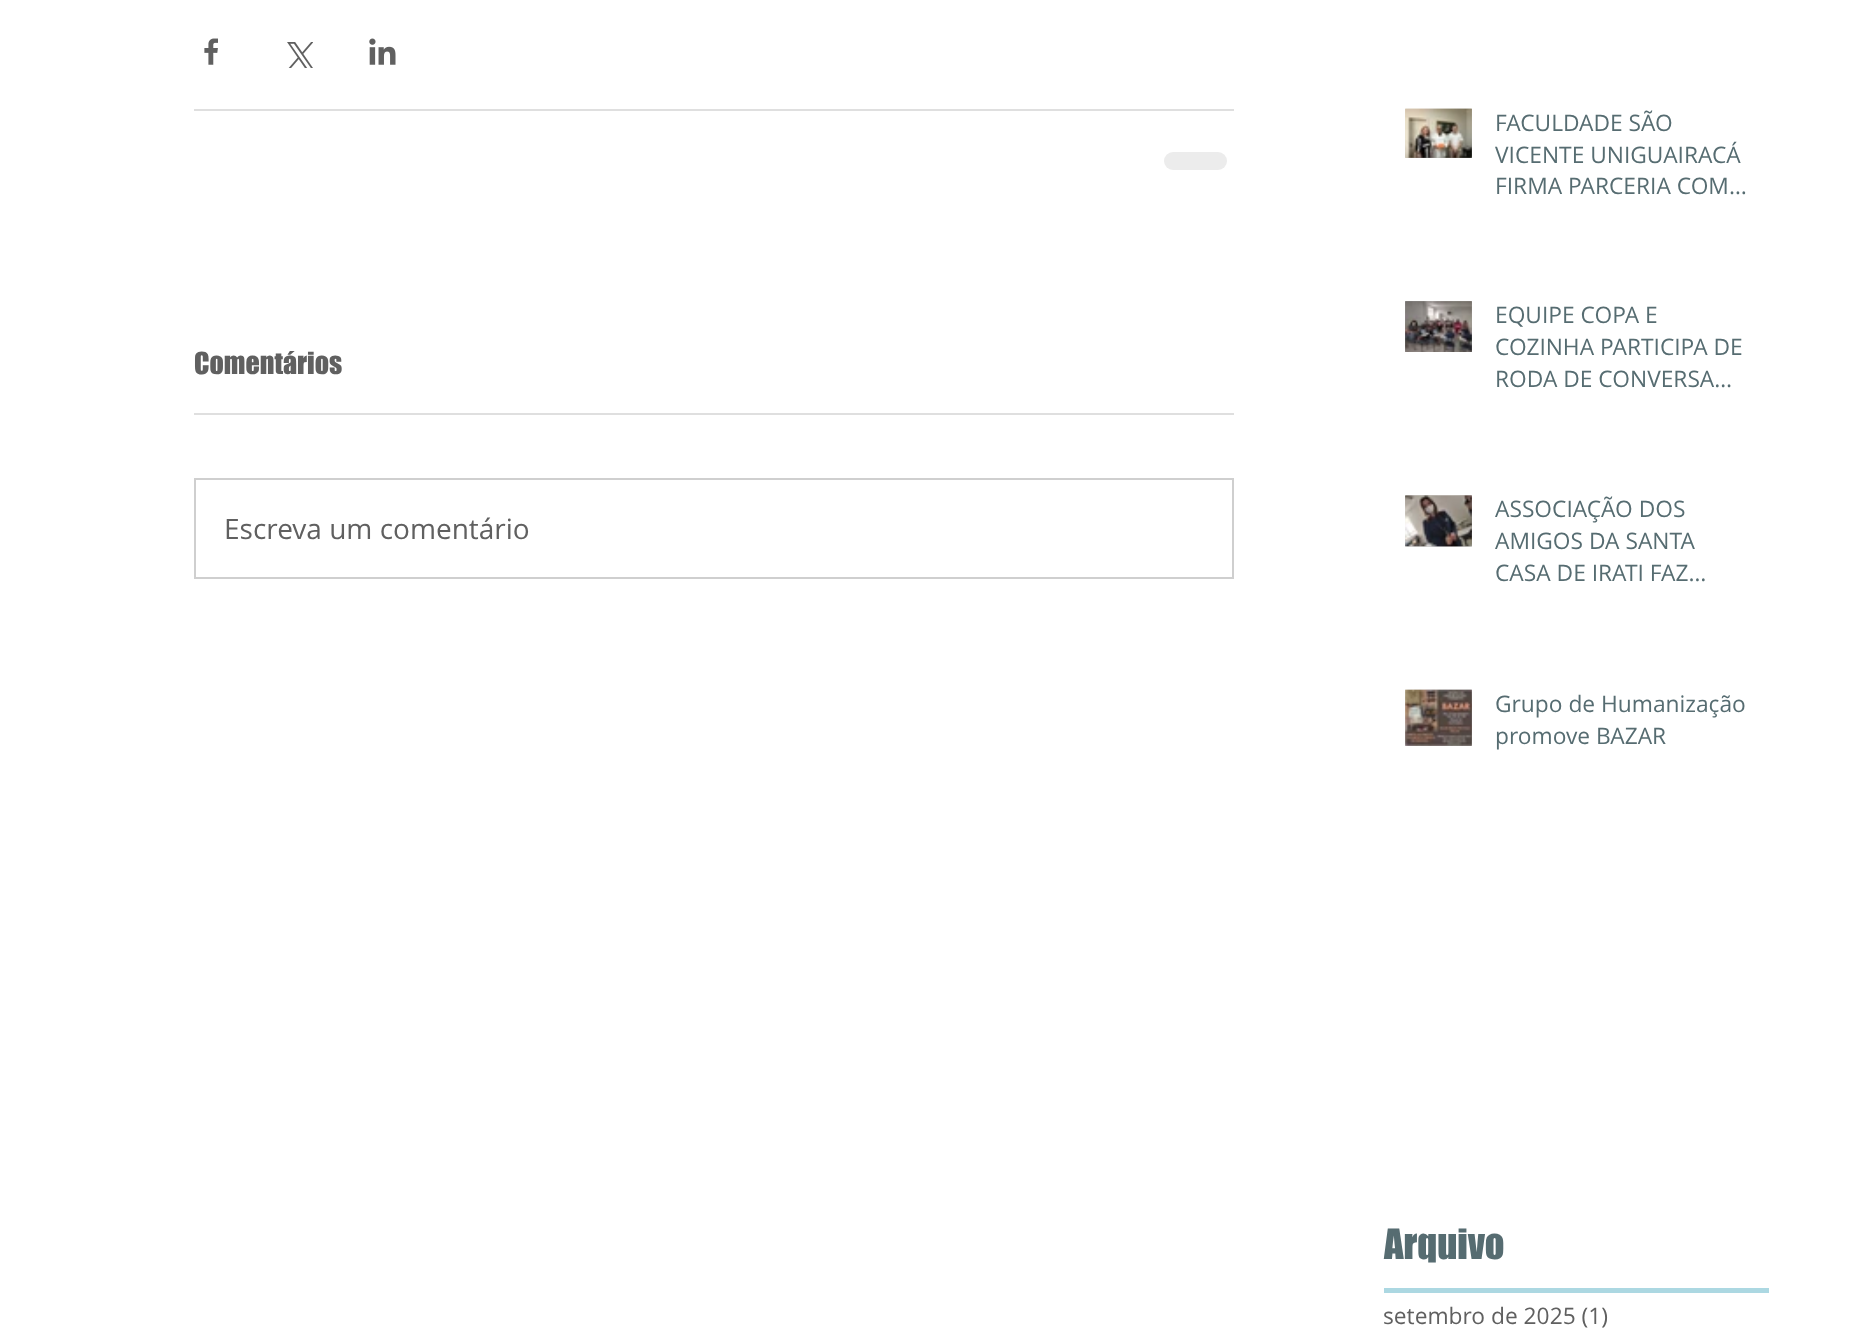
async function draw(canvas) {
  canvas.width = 1864;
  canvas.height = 1336;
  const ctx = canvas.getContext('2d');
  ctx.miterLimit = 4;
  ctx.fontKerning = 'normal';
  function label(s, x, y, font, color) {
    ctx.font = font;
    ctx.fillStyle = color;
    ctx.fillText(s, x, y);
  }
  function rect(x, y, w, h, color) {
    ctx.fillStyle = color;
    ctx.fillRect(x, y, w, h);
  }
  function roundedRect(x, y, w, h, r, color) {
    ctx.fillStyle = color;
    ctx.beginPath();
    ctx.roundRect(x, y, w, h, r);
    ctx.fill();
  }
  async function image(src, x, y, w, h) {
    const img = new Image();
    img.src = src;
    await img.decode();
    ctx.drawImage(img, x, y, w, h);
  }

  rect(0, 0, 1864, 1336, '#fff');
  await image('assets/img1.png', 204, 38, 14, 27);
  await image('assets/img2.png', 287, 42, 26, 26);
  await image('assets/img3.png', 369, 38, 27, 27);
  rect(194, 109, 1040, 2, '#dfdfdf');
  roundedRect(1164, 152, 63, 18, 9, '#ececec');
  label('Comentários', 194, 374, '28px "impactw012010"', '#606060');
  rect(194, 413, 1040, 2, '#dfdfdf');
  ctx.strokeStyle = '#cfcfcf';
  ctx.lineWidth = 2;
  ctx.strokeRect(195, 479, 1038, 99);
  label('Escreva um comentário', 224, 539, '28px Open Sans', '#606060');
  await image('assets/img4.png', 1405, 108, 67, 50);
  await image('assets/img5.png', 1405, 108, 67, 50);
  label('FACULDADE SÃO', 1495, 131, '22.75px Open Sans', '#566c71');
  label('VICENTE UNIGUAIRACÁ', 1495, 163, '22.75px Open Sans', '#566c71');
  label('FIRMA PARCERIA COM…', 1495, 194, '22.75px Open Sans', '#566c71');
  await image('assets/img6.png', 1405, 301, 67, 51);
  await image('assets/img7.png', 1405, 301, 67, 51);
  label('EQUIPE COPA E', 1495, 323, '22.75px Open Sans', '#566c71');
  label('COZINHA PARTICIPA DE', 1495, 355, '22.75px Open Sans', '#566c71');
  label('RODA DE CONVERSA…', 1495, 387, '22.75px Open Sans', '#566c71');
  await image('assets/img8.png', 1405, 495, 67, 52);
  await image('assets/img9.png', 1405, 495, 67, 52);
  label('ASSOCIAÇÃO DOS', 1495, 517, '22.75px Open Sans', '#566c71');
  label('AMIGOS DA SANTA', 1495, 549, '22.75px Open Sans', '#566c71');
  label('CASA DE IRATI FAZ…', 1495, 581, '22.75px Open Sans', '#566c71');
  await image('assets/img10.png', 1405, 689, 67, 57);
  await image('assets/img11.png', 1405, 689, 67, 57);
  label('Grupo de Humanização', 1495, 712, '22.75px Open Sans', '#566c71');
  label('promove BAZAR', 1495, 744, '22.75px Open Sans', '#566c71');
  label('Arquivo', 1384, 1259, '38.5px "impactw012010"', '#566c71');
  rect(1384, 1288, 385, 5, '#acd8e2');
  label('setembro de 2025 (1)', 1383, 1324, '22.75px Open Sans', '#606060');
}

draw(document.querySelector('canvas'));
